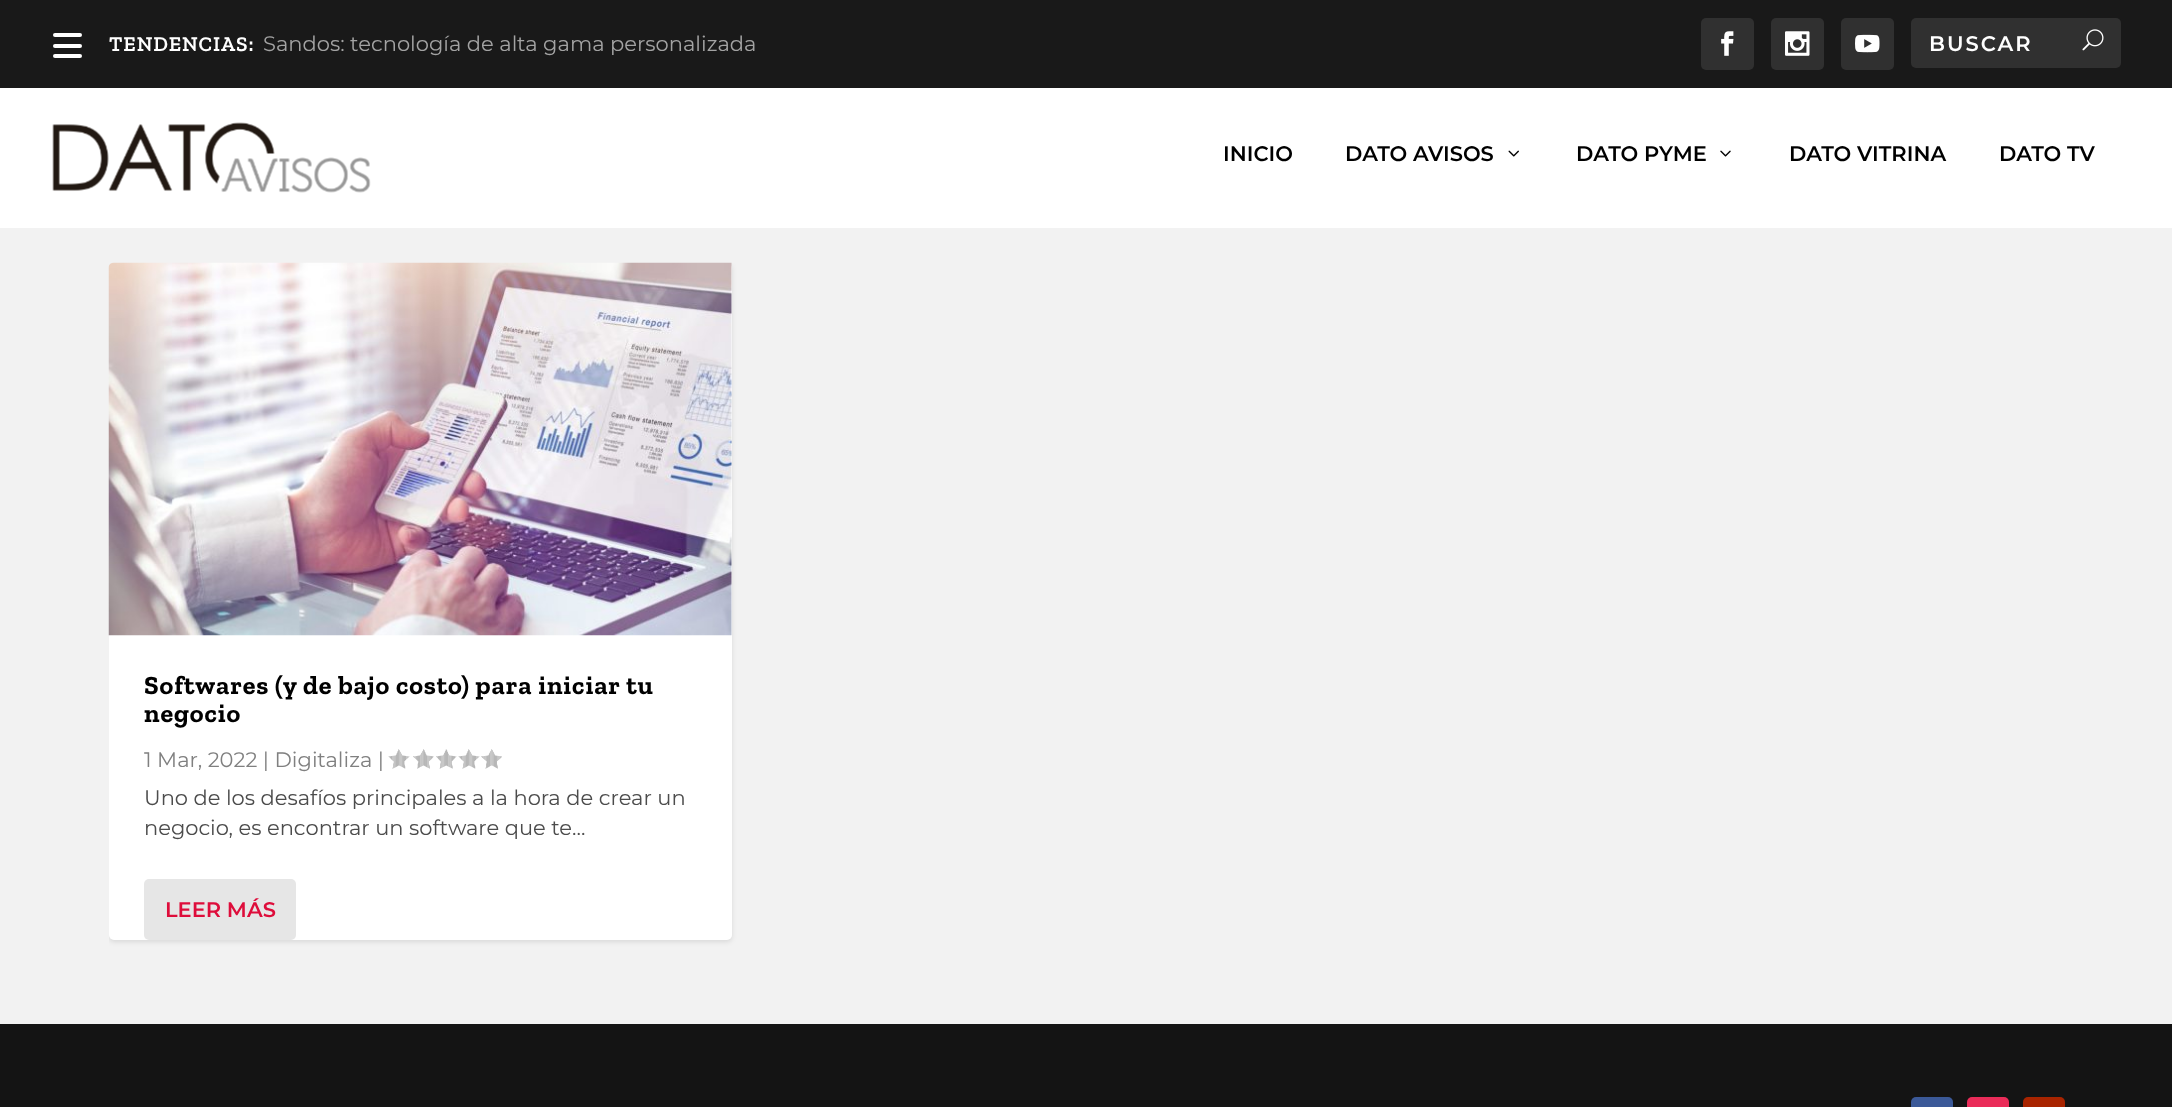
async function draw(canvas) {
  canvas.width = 2172;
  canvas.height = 1107;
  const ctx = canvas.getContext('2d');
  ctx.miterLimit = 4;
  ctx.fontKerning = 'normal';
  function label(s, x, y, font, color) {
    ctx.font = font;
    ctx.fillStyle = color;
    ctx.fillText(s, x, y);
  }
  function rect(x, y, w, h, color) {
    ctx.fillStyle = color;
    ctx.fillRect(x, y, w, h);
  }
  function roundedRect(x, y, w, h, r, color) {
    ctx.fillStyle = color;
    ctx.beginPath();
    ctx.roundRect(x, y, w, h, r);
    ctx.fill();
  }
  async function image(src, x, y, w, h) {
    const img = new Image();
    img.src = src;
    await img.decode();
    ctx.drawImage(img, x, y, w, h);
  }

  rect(0, 0, 2172, 1107, '#f2f2f2');
  rect(0, 0, 2172, 88, '#191919');
  roundedRect(53, 33, 29, 4, 2, '#fff');
  roundedRect(53, 44, 29, 4, 2, '#fff');
  roundedRect(53, 54, 29, 4, 2, '#fff');
  ctx.letterSpacing = '0.9px';
  label('TENDENCIAS:', 109, 51, '600 21px Zilla Slab', '#fff');
  ctx.letterSpacing = '0px';
  label('Sandos: tecnología de alta gama personalizada', 263, 51, '21px Montserrat', '#a3a3a3');
  roundedRect(1701, 18, 53, 52, 5, '#303030');
  await image('assets/img1.png', 1721, 31, 13, 25);
  roundedRect(1771, 18, 53, 52, 5, '#303030');
  await image('assets/img2.png', 1785, 31, 25, 25);
  roundedRect(1841, 18, 53, 52, 5, '#303030');
  await image('assets/img3.png', 1855, 34, 25, 19);
  roundedRect(1911, 18, 210, 50, 5, '#303030');
  ctx.letterSpacing = '2px';
  label('BUSCAR', 1929, 51, '600 21px Montserrat', '#fff');
  await image('assets/img4.png', 2082, 29, 22, 22);
  rect(0, 88, 2172, 140, '#fff');
  await image('assets/img5.png', 52, 122, 319, 71);
  ctx.letterSpacing = '0px';
  label('INICIO', 1223, 161, '600 21px Montserrat', '#000');
  label('DATO AVISOS', 1345, 161, '600 21px Montserrat', '#000');
  await image('assets/img6.png', 1508, 150, 11, 7);
  label('DATO PYME', 1576, 161, '600 21px Montserrat', '#000');
  await image('assets/img7.png', 1720, 150, 11, 7);
  label('DATO VITRINA', 1789, 161, '600 21px Montserrat', '#000');
  label('DATO TV', 1999, 161, '600 21px Montserrat', '#000');
  ctx.save();
  ctx.beginPath();
  ctx.roundRect(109, 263, 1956, 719, 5);
  ctx.clip();
  ctx.fillStyle = '#0000001a';
  ctx.filter = 'blur(2.5px)';
  ctx.beginPath();
  ctx.roundRect(109, 264, 623, 678, 5);
  ctx.fill();
  ctx.filter = 'none';
  ctx.restore();
  roundedRect(109, 263, 623, 677, 5, '#fff');
  await image('assets/img8.png', 108, 262, 624, 374);
  ctx.letterSpacing = '0.9px';
  label('Softwares (y de bajo costo) para iniciar tu', 144, 694, 'bold 26.25px Zilla Slab', '#000');
  label('negocio', 144, 722, 'bold 26.25px Zilla Slab', '#000');
  ctx.letterSpacing = '0px';
  label('1 Mar, 2022 | Digitaliza |', 144, 767, '21px Montserrat', '#808080');
  await image('assets/img9.png', 388, 749, 22, 20);
  await image('assets/img10.png', 413, 749, 21, 20);
  await image('assets/img11.png', 436, 749, 21, 20);
  await image('assets/img9.png', 458, 749, 22, 20);
  await image('assets/img12.png', 481, 749, 21, 20);
  label('Uno de los desafíos principales a la hora de crear un', 144, 805, '21px Montserrat', '#4c4c4c');
  label('negocio, es encontrar un software que te...', 144, 835, '21px Montserrat', '#4c4c4c');
  roundedRect(144, 879, 152, 61, 5, '#e6e6e6');
  label('LEER MÁS', 165, 917, '600 21px Montserrat', '#de0d3b');
  rect(0, 1024, 2172, 83, '#141414');
  roundedRect(1911, 1097, 42, 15, 5, '#3b5998');
  roundedRect(1967, 1097, 42, 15, 5, '#ea2c59');
  roundedRect(2023, 1097, 42, 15, 5, '#a82400');
}

draw(document.querySelector('canvas'));
